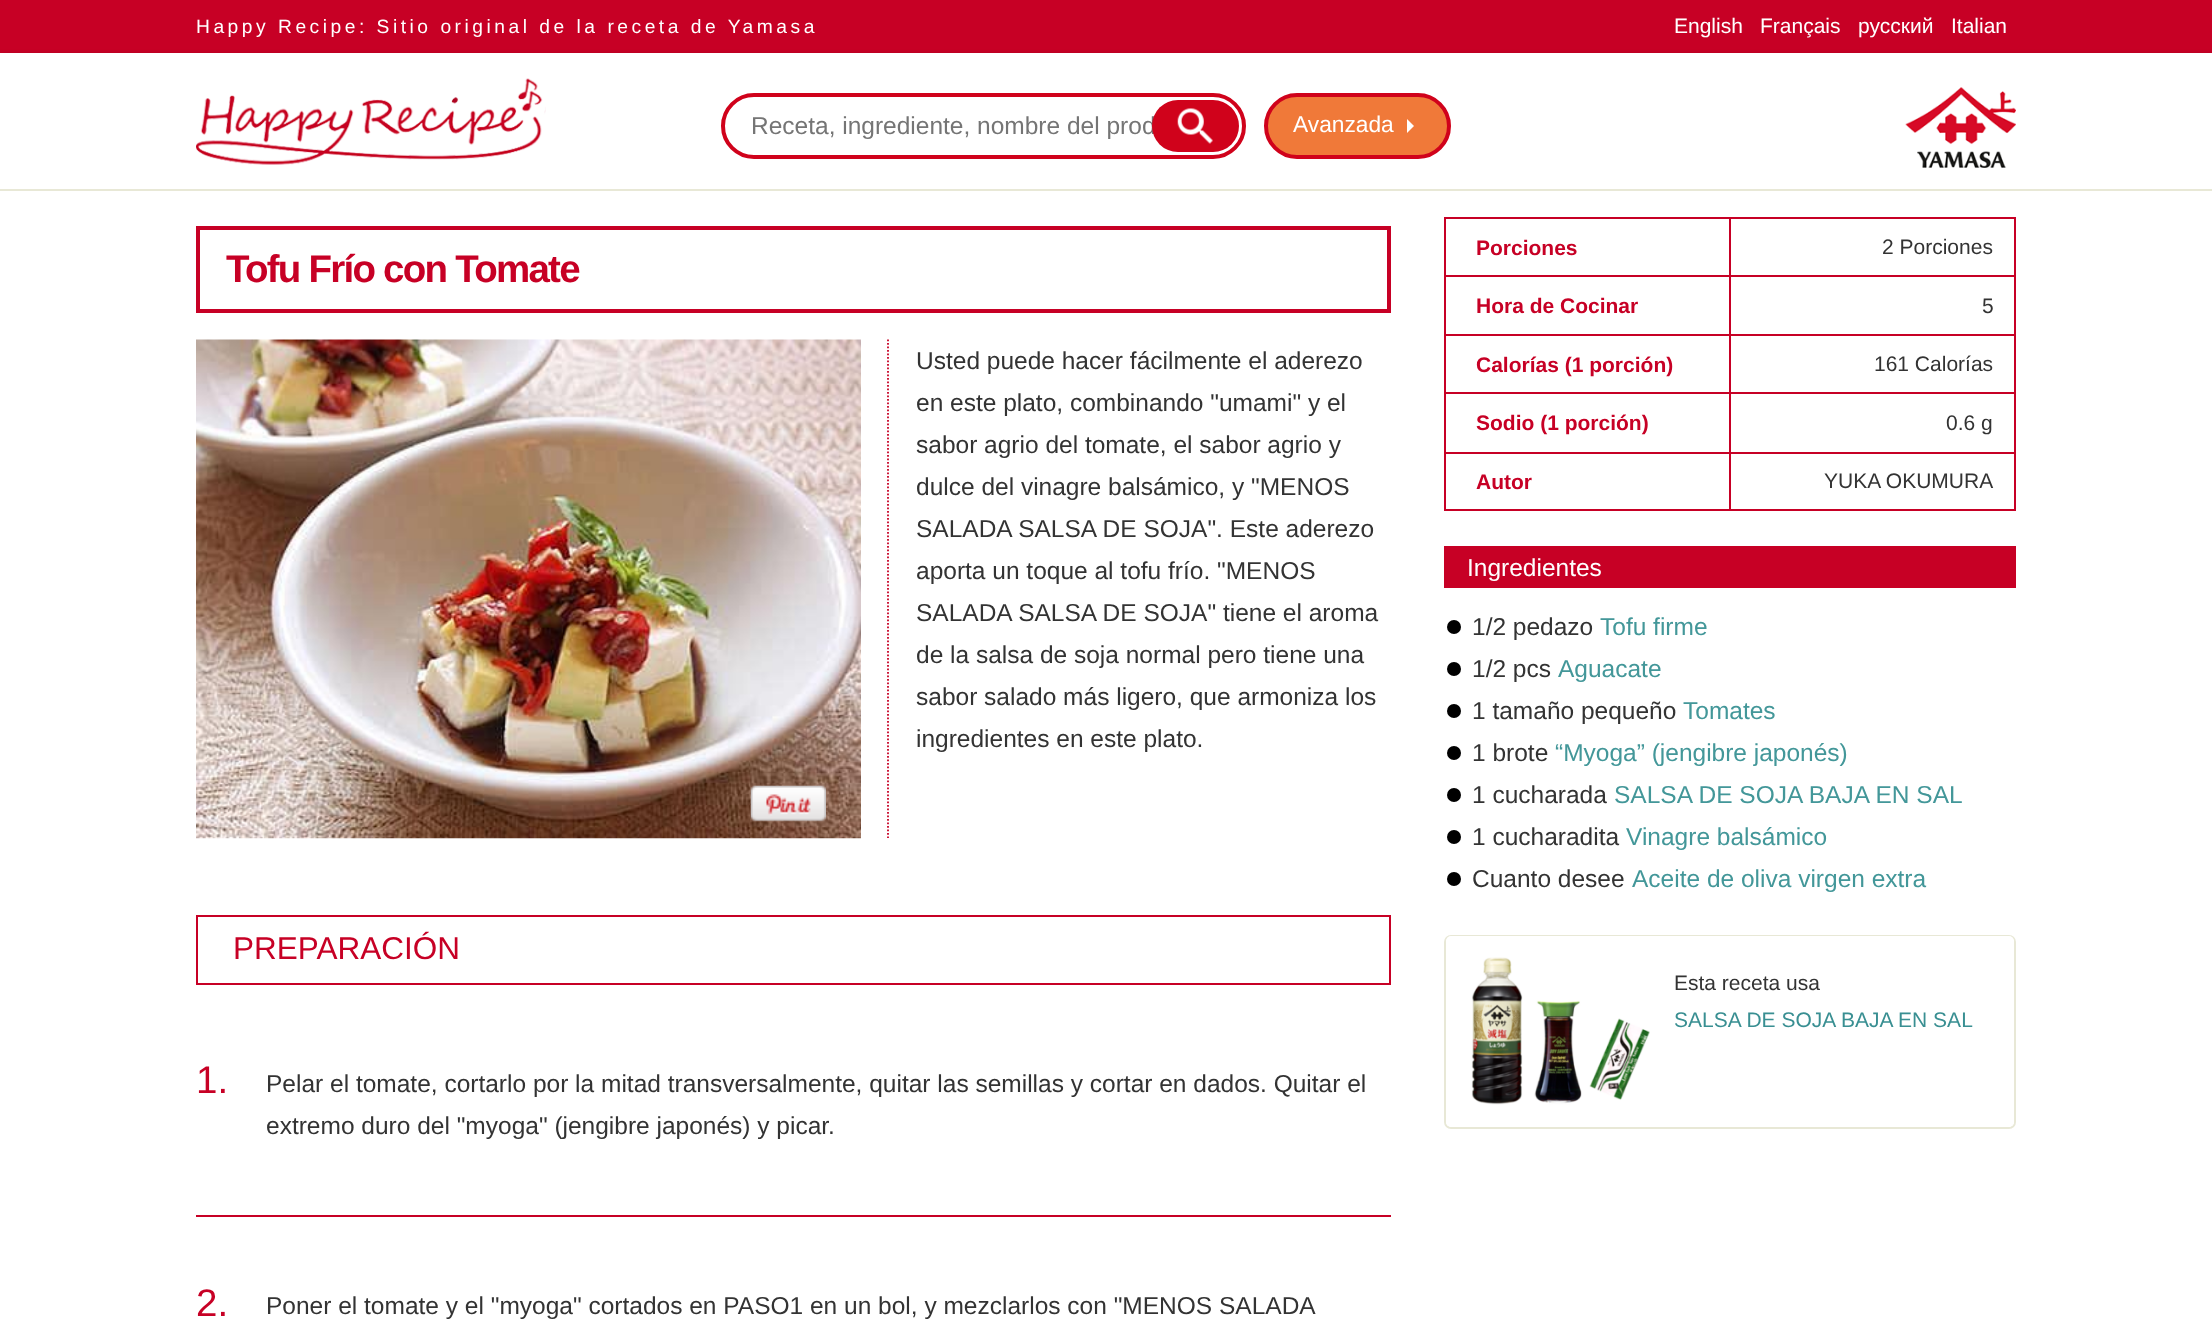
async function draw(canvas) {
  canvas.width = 2212;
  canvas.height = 1329;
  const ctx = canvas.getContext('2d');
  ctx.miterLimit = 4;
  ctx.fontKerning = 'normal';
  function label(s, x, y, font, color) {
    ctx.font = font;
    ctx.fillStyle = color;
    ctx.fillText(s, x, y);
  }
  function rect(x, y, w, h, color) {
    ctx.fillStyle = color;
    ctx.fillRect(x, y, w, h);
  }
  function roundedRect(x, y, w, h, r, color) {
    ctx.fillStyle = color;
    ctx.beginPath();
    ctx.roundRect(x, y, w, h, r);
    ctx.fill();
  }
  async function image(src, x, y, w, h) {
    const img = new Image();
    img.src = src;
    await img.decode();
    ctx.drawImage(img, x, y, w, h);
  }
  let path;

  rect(0, 0, 2212, 1329, '#c70025');
  ctx.letterSpacing = '3.5px';
  label('Happy Recipe: Sitio original de la receta de Yamasa', 196, 33, '19.25px Liberation Sans', '#fff');
  ctx.letterSpacing = '0px';
  label('English', 1674, 33, '21px Liberation Sans', '#fff');
  label('Français', 1760, 33, '21px Liberation Sans', '#fff');
  label('русский', 1858, 33, '21px Liberation Sans', '#fff');
  label('Italian', 1951, 33, '21px Liberation Sans', '#fff');
  ctx.fillStyle = '#0000001a';
  ctx.filter = 'blur(2px)';
  ctx.beginPath();
  ctx.rect(0, 53, 2212, 138);
  ctx.fill();
  ctx.filter = 'none';
  rect(0, 53, 2212, 136, '#fff');
  rect(0, 189, 2212, 2, '#e8e8d6');
  await image('assets/img1.png', 196, 78, 350, 87);
  ctx.beginPath();
  ctx.roundRect(723, 95, 521, 62, 31);
  ctx.strokeStyle = '#d0021b';
  ctx.lineWidth = 4;
  ctx.stroke();
  label('Receta, ingrediente, nombre del prod', 751, 134, '24.5px Liberation Sans', '#757575');
  roundedRect(1152, 100, 87, 52, 26, '#d0021b');
  await image('assets/img2.png', 1177, 108, 36, 36);
  ctx.fillStyle = '#f07939';
  ctx.beginPath();
  ctx.roundRect(1266, 95, 183, 62, 31);
  ctx.fill();
  ctx.stroke();
  label('Avanzada', 1293, 132, '22.75px Liberation Sans', '#fff');
  path = new Path2D('M1407 133V119L1414 126Z');
  ctx.fill(path);
  await image('assets/img3.png', 1905, 87, 111, 81);
  rect(0, 191, 2212, 1138, '#fff');
  ctx.strokeStyle = '#c70025';
  ctx.strokeRect(198, 228, 1191, 83);
  ctx.letterSpacing = '-1.75px';
  label('Tofu Frío con Tomate', 226, 282, 'bold 38.5px Liberation Sans', '#c70025');
  path = new Path2D('M888 339.5V838');
  ctx.lineWidth = 1.8;
  ctx.setLineDash([1.75, 1.75]);
  ctx.stroke(path);
  await image('assets/img4.png', 196, 339, 665, 500);
  await image('assets/img5.png', 750, 785, 76, 37);
  ctx.letterSpacing = '0px';
  label('Usted puede hacer fácilmente el aderezo', 916, 369, '24.5px Liberation Sans', '#333');
  label('en este plato, combinando "umami" y el', 916, 411, '24.5px Liberation Sans', '#333');
  label('sabor agrio del tomate, el sabor agrio y', 916, 453, '24.5px Liberation Sans', '#333');
  label('dulce del vinagre balsámico, y "MENOS', 916, 495, '24.5px Liberation Sans', '#333');
  label('SALADA SALSA DE SOJA". Este aderezo', 916, 537, '24.5px Liberation Sans', '#333');
  label('aporta un toque al tofu frío. "MENOS', 916, 579, '24.5px Liberation Sans', '#333');
  label('SALADA SALSA DE SOJA" tiene el aroma', 916, 621, '24.5px Liberation Sans', '#333');
  label('de la salsa de soja normal pero tiene una', 916, 663, '24.5px Liberation Sans', '#333');
  label('sabor salado más ligero, que armoniza los', 916, 705, '24.5px Liberation Sans', '#333');
  label('ingredientes en este plato.', 916, 747, '24.5px Liberation Sans', '#333');
  ctx.lineWidth = 2;
  ctx.setLineDash([]);
  ctx.strokeRect(197, 916, 1193, 68);
  label('PREPARACIÓN', 233, 959, '31.5px Liberation Sans', '#c70025');
  label('1.', 196, 1093, '38.5px Liberation Sans', '#c70025');
  label('Pelar el tomate, cortarlo por la mitad transversalmente, quitar las semillas y cortar en dados. Quitar el', 266, 1092, '24.5px Liberation Sans', '#333');
  label('extremo duro del "myoga" (jengibre japonés) y picar.', 266, 1134, '24.5px Liberation Sans', '#333');
  rect(196, 1215, 1195, 2, '#c70025');
  label('2.', 196, 1316, '38.5px Liberation Sans', '#c70025');
  label('Poner el tomate y el "myoga" cortados en PASO1 en un bol, y mezclarlos con "MENOS SALADA', 266, 1314, '24.5px Liberation Sans', '#333');
  rect(1444, 217, 572, 2, '#c70025');
  rect(2014, 217, 2, 294, '#c70025');
  rect(1444, 509, 572, 2, '#c70025');
  rect(1444, 217, 2, 294, '#c70025');
  rect(1444, 275, 572, 2, '#c70025');
  label('Porciones', 1476, 255, 'bold 21px Liberation Sans', '#c70025');
  label('2 Porciones', 1882, 254, '21px Liberation Sans', '#333');
  rect(1444, 334, 572, 2, '#c70025');
  label('Hora de Cocinar', 1476, 313, 'bold 21px Liberation Sans', '#c70025');
  label('5', 1982, 313, '21px Liberation Sans', '#333');
  rect(1444, 392, 572, 2, '#c70025');
  label('Calorías (1 porción)', 1476, 372, 'bold 21px Liberation Sans', '#c70025');
  label('161 Calorías', 1874, 371, '21px Liberation Sans', '#333');
  rect(1444, 452, 572, 2, '#c70025');
  label('Sodio (1 porción)', 1476, 430, 'bold 21px Liberation Sans', '#c70025');
  label('0.6 g', 1946, 430, '21px Liberation Sans', '#333');
  rect(1729, 217, 2, 294, '#c70025');
  label('Autor', 1476, 489, 'bold 21px Liberation Sans', '#c70025');
  label('YUKA OKUMURA', 1824, 488, '21px Liberation Sans', '#333');
  rect(1444, 546, 572, 42, '#c70025');
  label('Ingredientes', 1467, 576, '24.5px Liberation Sans', '#fff');
  ctx.fillStyle = '#000';
  ctx.beginPath();
  ctx.arc(1454, 627, 7, 0, 2 * Math.PI);
  ctx.fill();
  label('1/2 pedazo', 1472, 635, '24.5px Liberation Sans', '#333');
  label('Tofu firme', 1600, 635, '24.5px Liberation Sans', '#439799');
  ctx.fillStyle = '#000';
  ctx.beginPath();
  ctx.arc(1454, 669, 7, 0, 2 * Math.PI);
  ctx.fill();
  label('1/2 pcs', 1472, 677, '24.5px Liberation Sans', '#333');
  label('Aguacate', 1558, 677, '24.5px Liberation Sans', '#439799');
  ctx.fillStyle = '#000';
  ctx.beginPath();
  ctx.arc(1454, 711, 7, 0, 2 * Math.PI);
  ctx.fill();
  label('1 tamaño pequeño', 1472, 719, '24.5px Liberation Sans', '#333');
  label('Tomates', 1683, 719, '24.5px Liberation Sans', '#439799');
  ctx.fillStyle = '#000';
  ctx.beginPath();
  ctx.arc(1454, 753, 7, 0, 2 * Math.PI);
  ctx.fill();
  label('1 brote', 1472, 761, '24.5px Liberation Sans', '#333');
  label('“Myoga” (jengibre japonés)', 1555, 761, '24.5px Liberation Sans', '#439799');
  ctx.fillStyle = '#000';
  ctx.beginPath();
  ctx.arc(1454, 795, 7, 0, 2 * Math.PI);
  ctx.fill();
  label('1 cucharada', 1472, 803, '24.5px Liberation Sans', '#333');
  label('SALSA DE SOJA BAJA EN SAL', 1614, 803, '24.5px Liberation Sans', '#439799');
  ctx.fillStyle = '#000';
  ctx.beginPath();
  ctx.arc(1454, 837, 7, 0, 2 * Math.PI);
  ctx.fill();
  label('1 cucharadita', 1472, 845, '24.5px Liberation Sans', '#333');
  label('Vinagre balsámico', 1626, 845, '24.5px Liberation Sans', '#439799');
  ctx.fillStyle = '#000';
  ctx.beginPath();
  ctx.arc(1454, 879, 7, 0, 2 * Math.PI);
  ctx.fill();
  label('Cuanto desee', 1472, 887, '24.5px Liberation Sans', '#333');
  label('Aceite de oliva virgen extra', 1632, 887, '24.5px Liberation Sans', '#439799');
  ctx.beginPath();
  ctx.roundRect(1445, 936, 570, 192, 6);
  ctx.strokeStyle = '#e8e8d6';
  ctx.stroke();
  roundedRect(1446, 936, 568, 191, 5, '#fff');
  await image('assets/img6.png', 1471, 957, 179, 148);
  label('Esta receta usa', 1674, 990, '21px Liberation Sans', '#333');
  label('SALSA DE SOJA BAJA EN SAL', 1674, 1027, '21px Liberation Sans', '#398f92');
}

draw(document.querySelector('canvas'));
